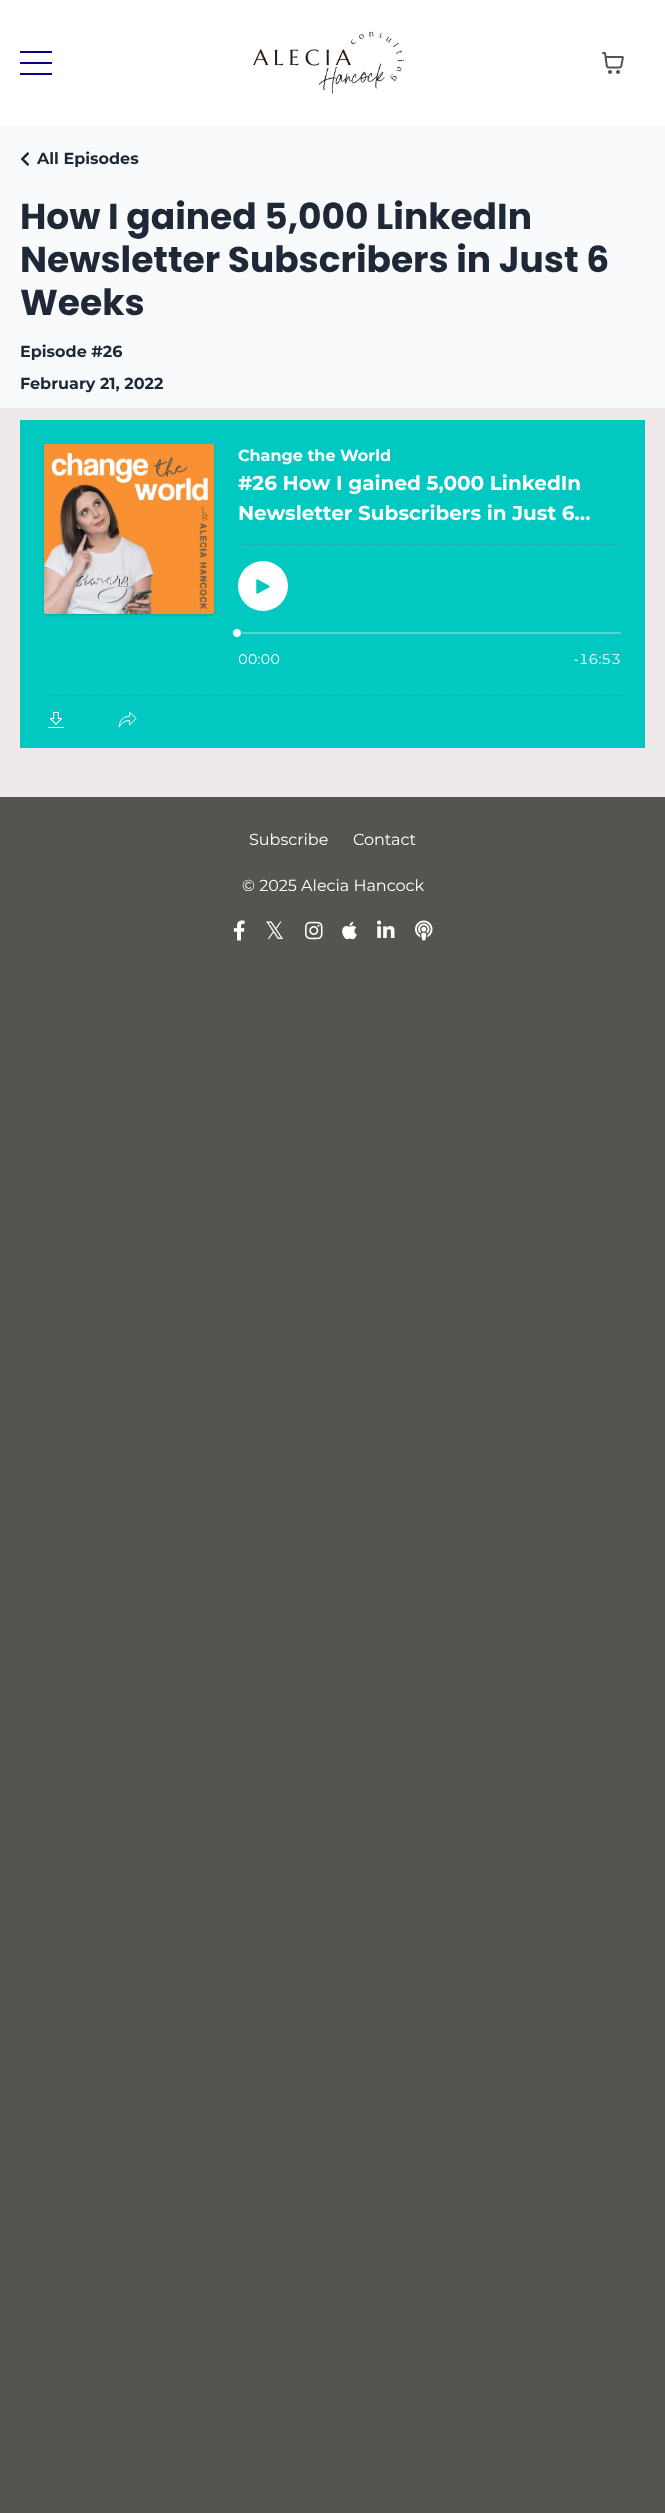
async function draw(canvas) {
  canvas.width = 665;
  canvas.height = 2513;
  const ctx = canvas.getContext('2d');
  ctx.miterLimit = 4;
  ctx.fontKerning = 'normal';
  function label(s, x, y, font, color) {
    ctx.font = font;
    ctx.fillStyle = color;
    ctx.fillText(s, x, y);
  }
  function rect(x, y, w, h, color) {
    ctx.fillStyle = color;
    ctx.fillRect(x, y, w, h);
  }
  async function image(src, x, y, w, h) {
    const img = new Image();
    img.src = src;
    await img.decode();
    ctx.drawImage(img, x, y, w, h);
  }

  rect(0, 0, 665, 2513, '#efe9e9');
  rect(0, 0, 665, 125, '#fff');
  rect(20, 51, 32, 2, '#0b0088');
  rect(20, 62, 32, 2, '#0b0088');
  rect(20, 73, 32, 2, '#0b0088');
  await image('assets/img1.png', 252, 31, 152, 63);
  await image('assets/img2.png', 602, 52, 22, 22);
  rect(0, 125, 665, 283, '#f8fafb');
  await image('assets/img3.png', 20, 152, 10, 14);
  label('All Episodes', 37, 164, 'bold 16px Montserrat', '#1f2837');
  label('How I gained 5,000 LinkedIn', 20, 229, 'bold 36px Poppins', '#1f2837');
  label('Newsletter Subscribers in Just 6', 20, 272, 'bold 36px Poppins', '#1f2837');
  label('Weeks', 20, 315, 'bold 36px Poppins', '#1f2837');
  label('Episode #26', 20, 357, 'bold 16px Montserrat', '#1f2837');
  label('February 21, 2022', 20, 389, 'bold 16px Montserrat', '#1f2837');
  await image('assets/img4.png', 20, 420, 625, 328);
  rect(0, 797, 665, 1716, '#565450');
  label('Subscribe', 249, 845, '16px Montserrat', '#fff');
  label('Contact', 353, 845, '16px Montserrat', '#fff');
  label('© 2025 Alecia Hancock', 242, 891, '16px Montserrat', '#fff');
  await image('assets/img5.png', 233, 920, 12, 21);
  label('𝕏', 265, 939, '24px DejaVu Sans', '#fff');
  await image('assets/img6.png', 305, 921, 18, 19);
  await image('assets/img7.png', 342, 921, 15, 19);
  await image('assets/img8.png', 377, 920, 18, 18);
  await image('assets/img9.png', 415, 920, 18, 21);
}

draw(document.querySelector('canvas'));
